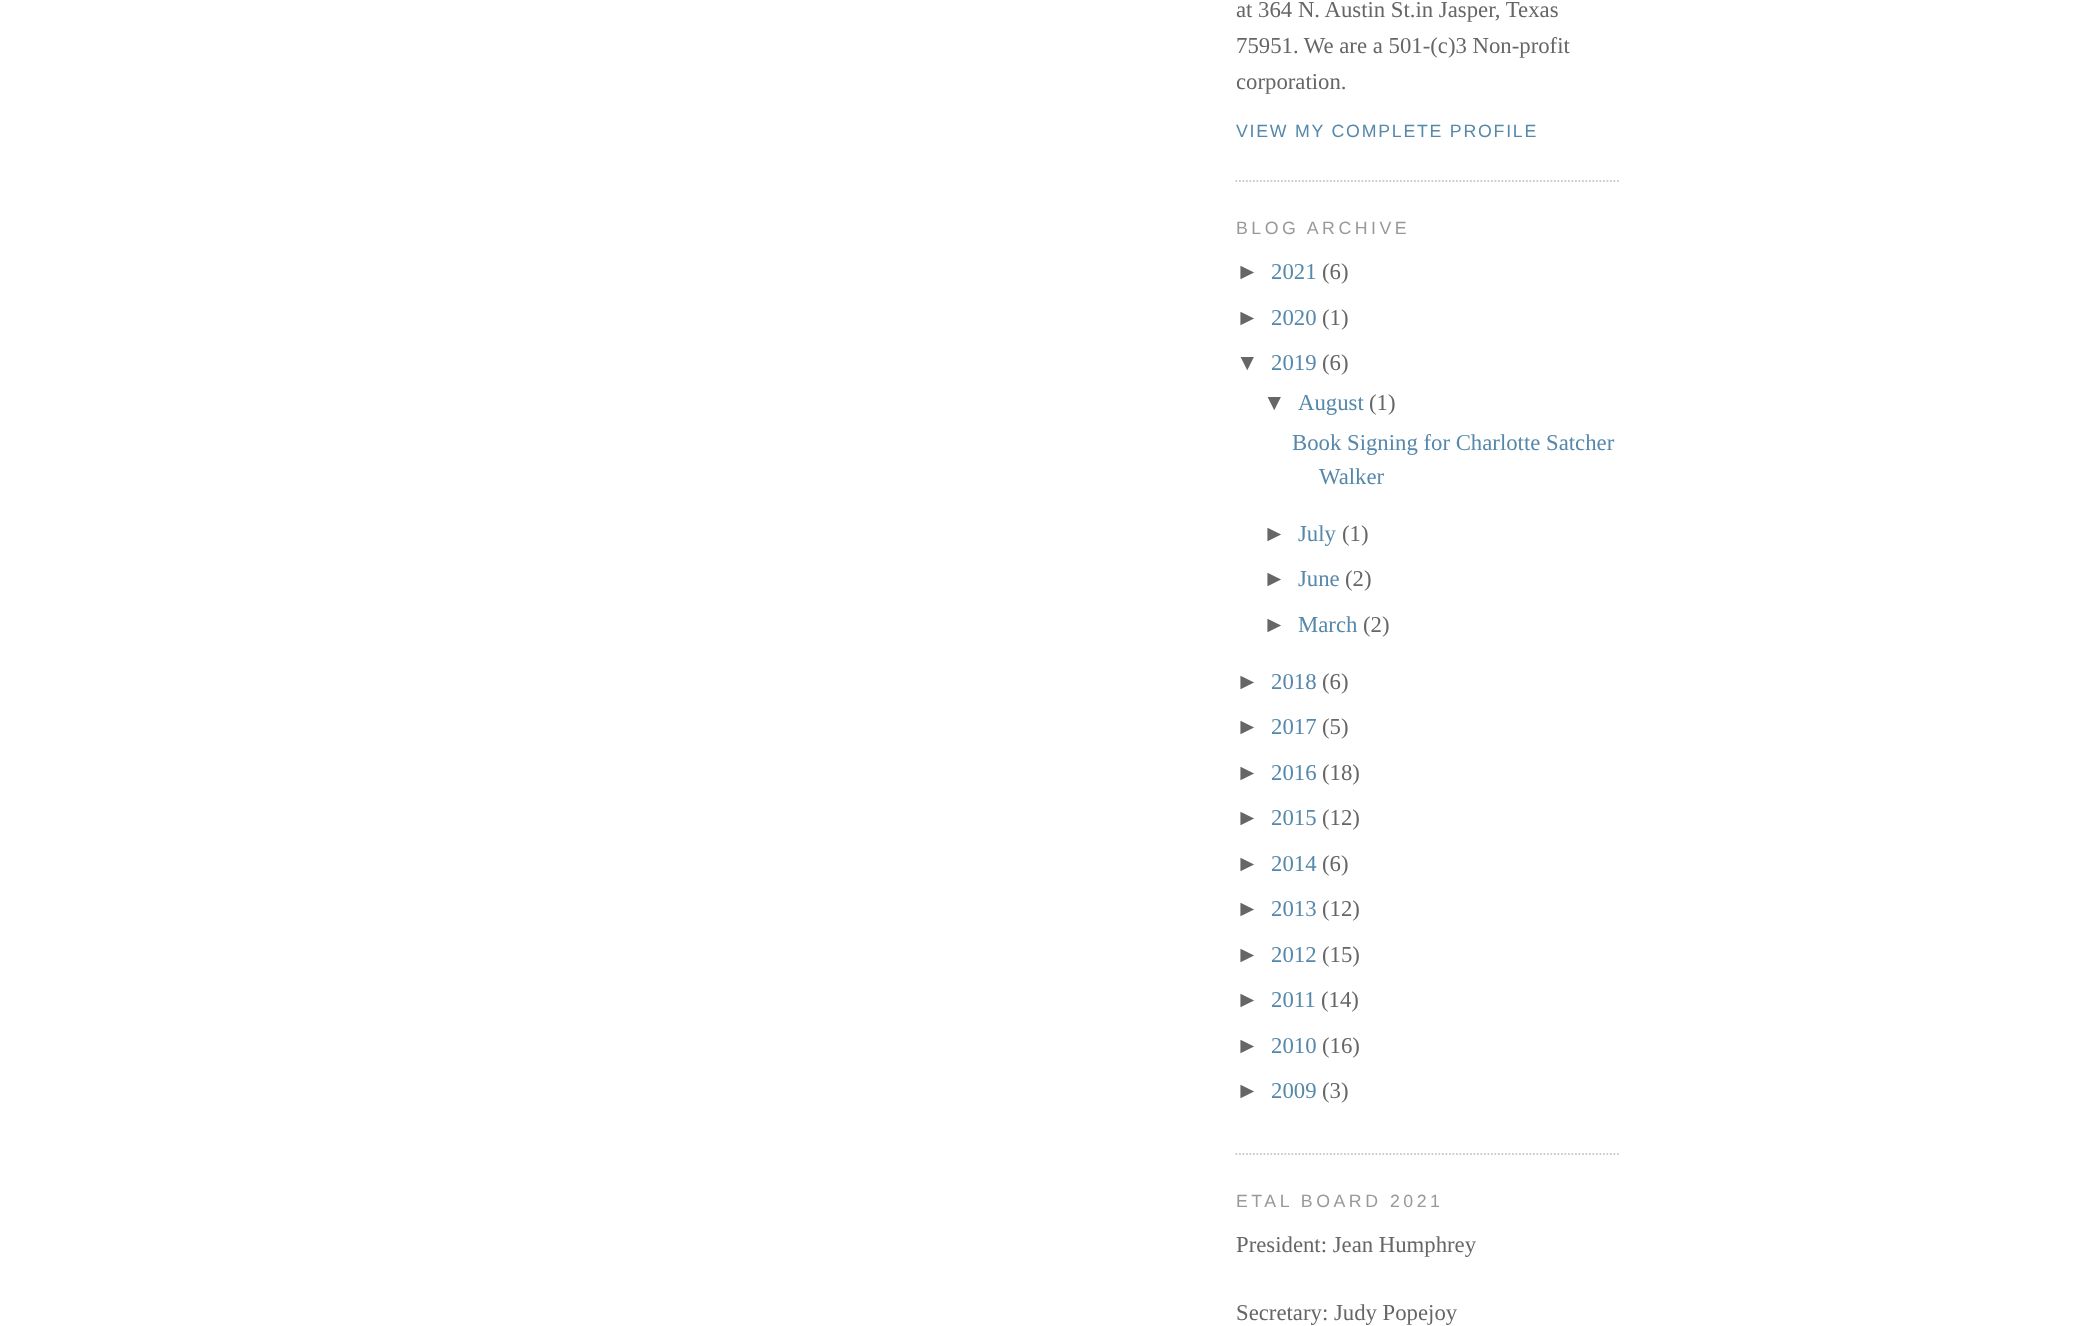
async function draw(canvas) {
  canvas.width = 2086;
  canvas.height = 1326;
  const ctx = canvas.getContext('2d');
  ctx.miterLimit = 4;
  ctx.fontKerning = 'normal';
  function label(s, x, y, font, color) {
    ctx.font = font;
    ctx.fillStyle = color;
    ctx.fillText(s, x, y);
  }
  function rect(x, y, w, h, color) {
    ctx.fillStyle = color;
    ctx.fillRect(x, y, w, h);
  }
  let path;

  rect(0, 0, 2086, 1326, '#fff');
  path = new Path2D('M1235.5 181H1620.5');
  ctx.strokeStyle = '#ccc';
  ctx.lineWidth = 1.8;
  ctx.setLineDash([1.75, 1.75]);
  ctx.stroke(path);
  label('at 364 N. Austin St.in Jasper, Texas', 1236, 17, '22.75px Liberation Serif', '#666');
  label('75951. We are a 501-(c)3 Non-profit', 1236, 53, '22.75px Liberation Serif', '#666');
  label('corporation.', 1236, 89, '22.75px Liberation Serif', '#666');
  ctx.letterSpacing = '1.75px';
  label('VIEW MY COMPLETE PROFILE', 1236, 137, '17.75px Liberation Sans', '#58a');
  path = new Path2D('M1235.5 1154H1620.5');
  ctx.stroke(path);
  ctx.letterSpacing = '3.5px';
  label('BLOG ARCHIVE', 1236, 234, '17.75px Liberation Sans', '#999');
  ctx.letterSpacing = '0px';
  label('►', 1236, 279, '22.75px Liberation Sans', '#666');
  label('2021', 1271, 279, '22.75px Liberation Serif', '#58a');
  label('(6)', 1322, 279, '22.75px Liberation Serif', '#666');
  label('►', 1236, 325, '22.75px Liberation Sans', '#666');
  label('2020', 1271, 325, '22.75px Liberation Serif', '#58a');
  label('(1)', 1322, 325, '22.75px Liberation Serif', '#666');
  label('▼', 1236, 370, '22.75px Liberation Sans', '#666');
  label('2019', 1271, 370, '22.75px Liberation Serif', '#58a');
  label('(6)', 1322, 370, '22.75px Liberation Serif', '#666');
  label('▼', 1263, 410, '22.75px Liberation Sans', '#666');
  label('August', 1298, 410, '22.75px Liberation Serif', '#58a');
  label('(1)', 1369, 410, '22.75px Liberation Serif', '#666');
  label('Book Signing for Charlotte Satcher', 1292, 450, '22.75px Liberation Serif', '#58a');
  label('Walker', 1319, 484, '22.75px Liberation Serif', '#58a');
  label('►', 1263, 541, '22.75px Liberation Sans', '#666');
  label('July', 1298, 541, '22.75px Liberation Serif', '#58a');
  label('(1)', 1342, 541, '22.75px Liberation Serif', '#666');
  label('►', 1263, 586, '22.75px Liberation Sans', '#666');
  label('June', 1298, 586, '22.75px Liberation Serif', '#58a');
  label('(2)', 1345, 586, '22.75px Liberation Serif', '#666');
  label('►', 1263, 632, '22.75px Liberation Sans', '#666');
  label('March', 1298, 632, '22.75px Liberation Serif', '#58a');
  label('(2)', 1363, 632, '22.75px Liberation Serif', '#666');
  label('►', 1236, 689, '22.75px Liberation Sans', '#666');
  label('2018', 1271, 689, '22.75px Liberation Serif', '#58a');
  label('(6)', 1322, 689, '22.75px Liberation Serif', '#666');
  label('►', 1236, 734, '22.75px Liberation Sans', '#666');
  label('2017', 1271, 734, '22.75px Liberation Serif', '#58a');
  label('(5)', 1322, 734, '22.75px Liberation Serif', '#666');
  label('►', 1236, 780, '22.75px Liberation Sans', '#666');
  label('2016', 1271, 780, '22.75px Liberation Serif', '#58a');
  label('(18)', 1322, 780, '22.75px Liberation Serif', '#666');
  label('►', 1236, 825, '22.75px Liberation Sans', '#666');
  label('2015', 1271, 825, '22.75px Liberation Serif', '#58a');
  label('(12)', 1322, 825, '22.75px Liberation Serif', '#666');
  label('►', 1236, 871, '22.75px Liberation Sans', '#666');
  label('2014', 1271, 871, '22.75px Liberation Serif', '#58a');
  label('(6)', 1322, 871, '22.75px Liberation Serif', '#666');
  label('►', 1236, 916, '22.75px Liberation Sans', '#666');
  label('2013', 1271, 916, '22.75px Liberation Serif', '#58a');
  label('(12)', 1322, 916, '22.75px Liberation Serif', '#666');
  label('►', 1236, 962, '22.75px Liberation Sans', '#666');
  label('2012', 1271, 962, '22.75px Liberation Serif', '#58a');
  label('(15)', 1322, 962, '22.75px Liberation Serif', '#666');
  label('►', 1236, 1007, '22.75px Liberation Sans', '#666');
  label('2011', 1271, 1007, '22.75px Liberation Serif', '#58a');
  label('(14)', 1321, 1007, '22.75px Liberation Serif', '#666');
  label('►', 1236, 1053, '22.75px Liberation Sans', '#666');
  label('2010', 1271, 1053, '22.75px Liberation Serif', '#58a');
  label('(16)', 1322, 1053, '22.75px Liberation Serif', '#666');
  label('►', 1236, 1098, '22.75px Liberation Sans', '#666');
  label('2009', 1271, 1098, '22.75px Liberation Serif', '#58a');
  label('(3)', 1322, 1098, '22.75px Liberation Serif', '#666');
  ctx.letterSpacing = '3.5px';
  label('ETAL BOARD 2021', 1236, 1207, '17.75px Liberation Sans', '#999');
  ctx.letterSpacing = '0px';
  label('President: Jean Humphrey', 1236, 1252, '22.75px Liberation Serif', '#666');
  label('Secretary: Judy Popejoy', 1236, 1320, '22.75px Liberation Serif', '#666');
}

draw(document.querySelector('canvas'));
